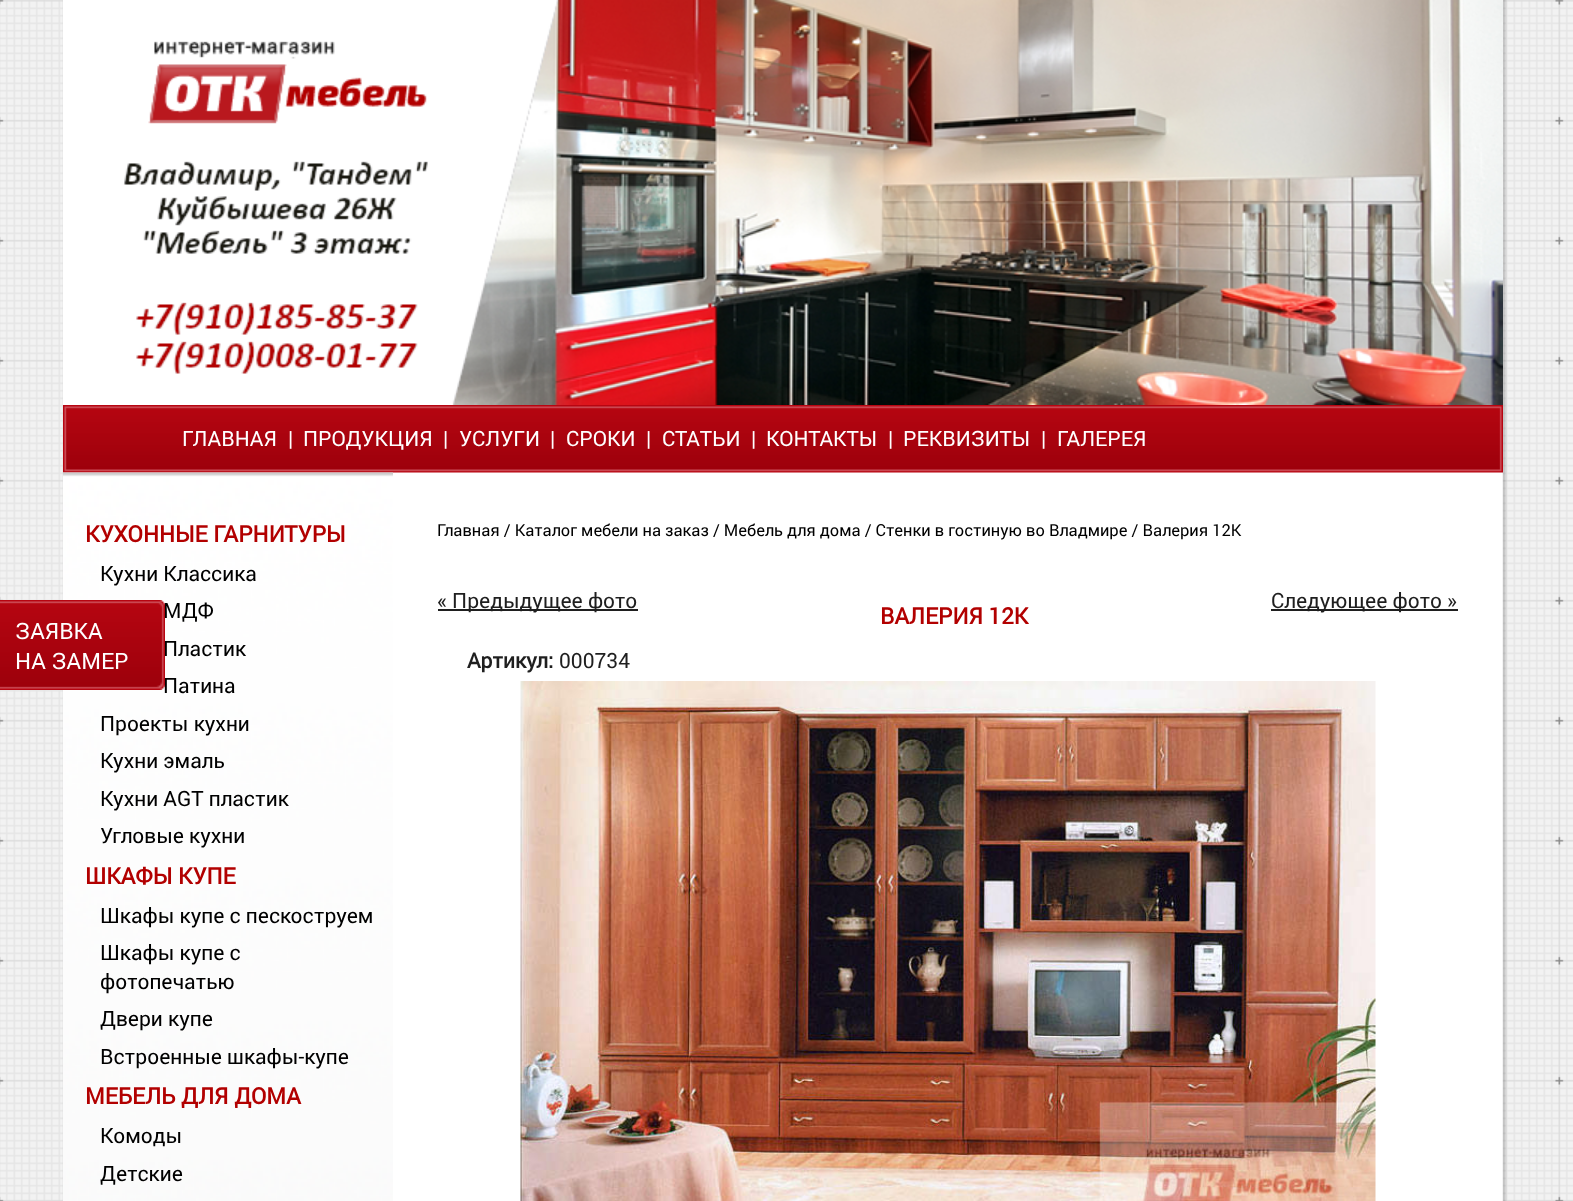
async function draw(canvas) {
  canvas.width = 1573;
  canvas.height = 1201;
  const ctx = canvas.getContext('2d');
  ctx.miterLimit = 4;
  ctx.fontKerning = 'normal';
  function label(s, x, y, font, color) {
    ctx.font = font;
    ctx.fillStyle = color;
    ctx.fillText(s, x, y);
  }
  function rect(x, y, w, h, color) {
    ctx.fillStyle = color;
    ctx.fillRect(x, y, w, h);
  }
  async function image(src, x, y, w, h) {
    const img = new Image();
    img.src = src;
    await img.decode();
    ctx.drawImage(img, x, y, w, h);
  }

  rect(0, 0, 1573, 1201, '#fff');
  await image('assets/img1.png', 0, 0, 1573, 1201);
  await image('assets/img3.png', 62, 0, 1445, 1201);
  await image('assets/img5.png', 63, 405, 1440, 68);
  await image('assets/img6.png', 63, 472, 330, 729);
  label('МДФ', 163, 618, '21px Roboto', '#000');
  label('Пластик', 163, 656, '21px Roboto', '#000');
  label('Патина', 163, 693, '21px Roboto', '#000');
  await image('assets/img2.png', 0, 600, 165, 90);
  label('ЗАЯВКА', 15, 639, '22.5px Roboto', '#fff');
  label('НА ЗАМЕР', 15, 669, '22.5px Roboto', '#fff');
  await image('assets/img4.png', 63, 0, 1440, 405);
  label('ГЛАВНАЯ', 182, 446, '21px Roboto', '#fff');
  label('|', 288, 446, '21px Roboto', '#fff');
  label('ПРОДУКЦИЯ', 303, 446, '21px Roboto', '#fff');
  label('|', 443, 446, '21px Roboto', '#fff');
  label('УСЛУГИ', 459, 446, '21px Roboto', '#fff');
  label('|', 550, 446, '21px Roboto', '#fff');
  label('СРОКИ', 566, 446, '21px Roboto', '#fff');
  label('|', 646, 446, '21px Roboto', '#fff');
  label('СТАТЬИ', 662, 446, '21px Roboto', '#fff');
  label('|', 751, 446, '21px Roboto', '#fff');
  label('КОНТАКТЫ', 766, 446, '21px Roboto', '#fff');
  label('|', 888, 446, '21px Roboto', '#fff');
  label('РЕКВИЗИТЫ', 903, 446, '21px Roboto', '#fff');
  label('|', 1041, 446, '21px Roboto', '#fff');
  label('ГАЛЕРЕЯ', 1057, 446, '21px Roboto', '#fff');
  label('КУХОННЫЕ ГАРНИТУРЫ', 85, 542, 'bold 22.5px Roboto', '#b20000');
  label('Кухни Классика', 100, 581, '21px Roboto', '#000');
  label('Проекты кухни', 100, 731, '21px Roboto', '#000');
  label('Кухни эмаль', 100, 768, '21px Roboto', '#000');
  label('Кухни AGT пластик', 100, 806, '21px Roboto', '#000');
  label('Угловые кухни', 100, 843, '21px Roboto', '#000');
  label('ШКАФЫ КУПЕ', 85, 884, 'bold 22.5px Roboto', '#b20000');
  label('Шкафы купе с пескоструем', 100, 923, '21px Roboto', '#000');
  label('Шкафы купе с', 100, 960, '21px Roboto', '#000');
  label('фотопечатью', 100, 989, '21px Roboto', '#000');
  label('Двери купе', 100, 1026, '21px Roboto', '#000');
  label('Встроенные шкафы-купе', 100, 1064, '21px Roboto', '#000');
  label('МЕБЕЛЬ ДЛЯ ДОМА', 85, 1104, 'bold 22.5px Roboto', '#b20000');
  label('Комоды', 100, 1143, '21px Roboto', '#000');
  label('Детские', 100, 1181, '21px Roboto', '#000');
  label('Главная / Каталог мебели на заказ / Мебель для дома / Стенки в гостиную во Владмире / Валерия 12К', 437, 536, '16.5px Roboto', '#000');
  rect(438, 609, 200, 2, '#1f1f1f');
  label('« Предыдущее фото', 437, 608, '21px Roboto', '#1f1f1f');
  rect(1271, 609, 187, 2, '#1f1f1f');
  label('Следующее фото »', 1271, 608, '21px Roboto', '#1f1f1f');
  label('ВАЛЕРИЯ 12К', 880, 624, 'bold 22.5px Roboto', '#b20000');
  label('Артикул:', 467, 668, 'bold 21px Roboto', '#1f1f1f');
  label('000734', 559, 668, '21px Roboto', '#1f1f1f');
  await image('assets/img7.png', 520, 681, 856, 520);
}

draw(document.querySelector('canvas'));
